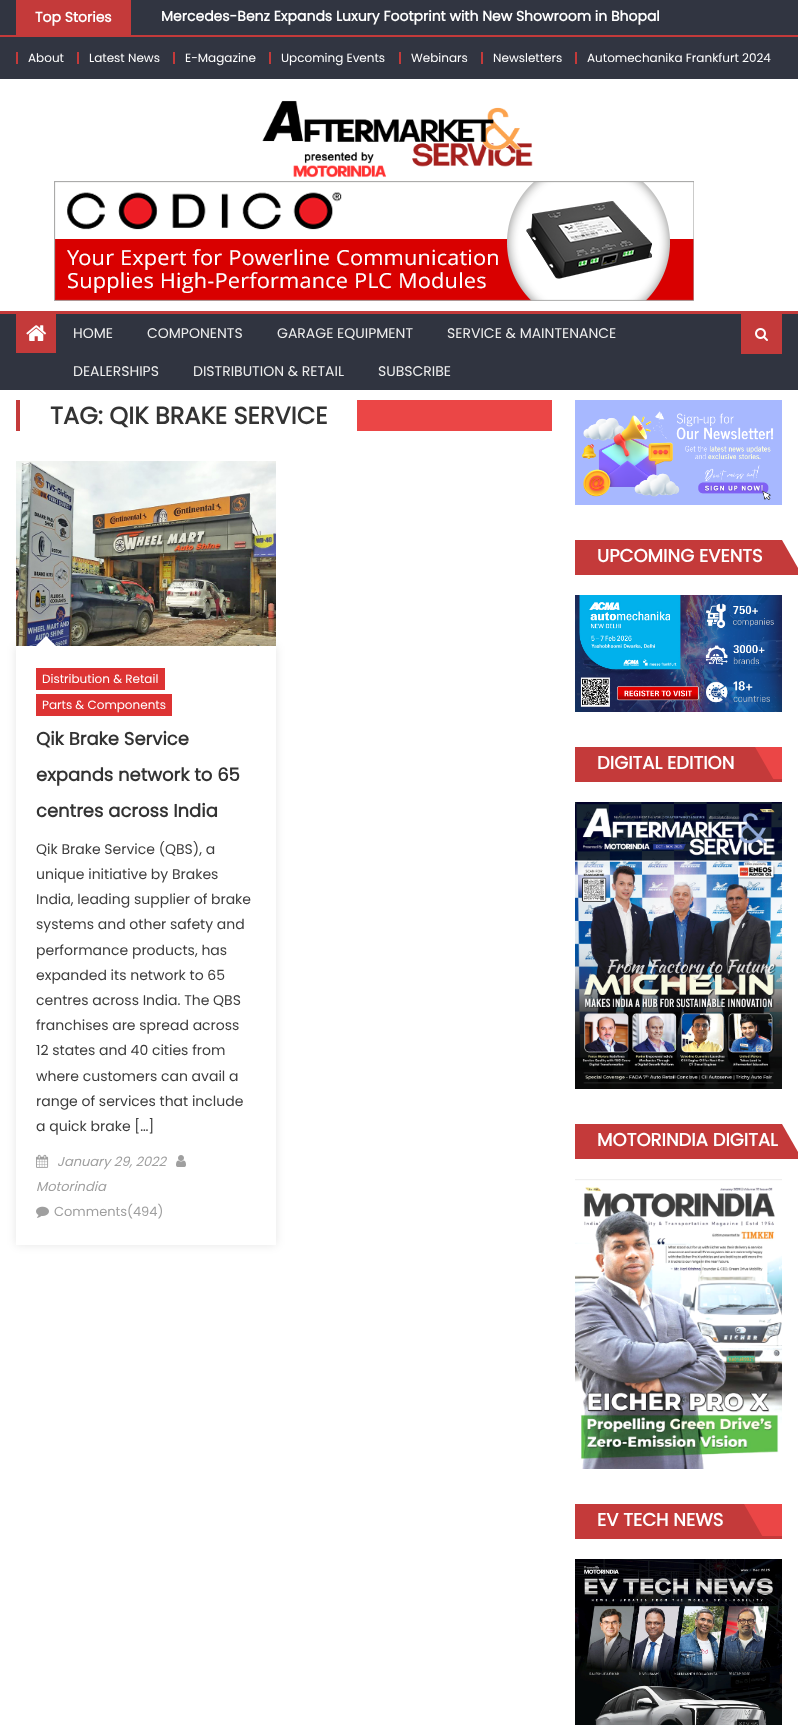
async function draw(canvas) {
  canvas.width = 798;
  canvas.height = 1725;
  const ctx = canvas.getContext('2d');
  ctx.miterLimit = 4;
  ctx.fontKerning = 'normal';
  function label(s, x, y, font, color) {
    ctx.font = font;
    ctx.fillStyle = color;
    ctx.fillText(s, x, y);
  }
  function rect(x, y, w, h, color) {
    ctx.fillStyle = color;
    ctx.fillRect(x, y, w, h);
  }
  async function image(src, x, y, w, h) {
    const img = new Image();
    img.src = src;
    await img.decode();
    ctx.drawImage(img, x, y, w, h);
  }
  let path;

  rect(0, 0, 798, 1725, '#fff');
  rect(0, 0, 798, 35, '#313541');
  rect(16, 0, 115, 35, '#c43a3a');
  label('Top Stories', 35, 22, 'bold 14px Poppins', '#fff');
  label('Mercedes-Benz Expands Luxury Footprint with New Showroom in Bhopal', 161, 21, 'bold 14px Poppins', '#fff');
  rect(0, 37, 798, 42, '#313541');
  rect(0, 35, 798, 2, '#c43a3a');
  rect(16, 52, 2, 12, '#c43a3a');
  label('About', 28, 62, '12px Poppins', '#fff');
  rect(77, 52, 2, 12, '#c43a3a');
  label('Latest News', 89, 62, '12px Poppins', '#fff');
  rect(173, 52, 2, 12, '#c43a3a');
  label('E-Magazine', 185, 62, '12px Poppins', '#fff');
  rect(269, 52, 2, 12, '#c43a3a');
  label('Upcoming Events', 281, 62, '12px Poppins', '#fff');
  rect(399, 52, 2, 12, '#c43a3a');
  label('Webinars', 411, 62, '12px Poppins', '#fff');
  rect(481, 52, 2, 12, '#c43a3a');
  label('Newsletters', 493, 62, '12px Poppins', '#fff');
  rect(575, 52, 2, 12, '#c43a3a');
  label('Automechanika Frankfurt 2024', 587, 62, '12px Poppins', '#fff');
  await image('assets/img1.png', 262, 100, 271, 78);
  await image('assets/img2.png', 54, 181, 640, 120);
  rect(0, 314, 798, 76, '#303440');
  rect(0, 311, 798, 3, '#c43a3a');
  rect(16, 314, 40, 39, '#c43a3a');
  await image('assets/img3.png', 26, 325, 21, 16);
  label('HOME', 73, 338, '14px Poppins', '#eee');
  label('COMPONENTS', 147, 338, '14px Poppins', '#eee');
  label('GARAGE EQUIPMENT', 277, 338, '14px Poppins', '#eee');
  label('SERVICE & MAINTENANCE', 447, 338, '14px Poppins', '#eee');
  label('DEALERSHIPS', 73, 376, '14px Poppins', '#eee');
  label('DISTRIBUTION & RETAIL', 193, 376, '14px Poppins', '#eee');
  label('SUBSCRIBE', 378, 376, '14px Poppins', '#eee');
  rect(741, 314, 41, 40, '#c43a3a');
  await image('assets/img4.png', 755, 328, 13, 13);
  rect(357, 400, 195, 31, '#eb4646');
  rect(16, 400, 4, 31, '#c43a3a');
  label('TAG: QIK BRAKE SERVICE', 50, 424, 'bold 24px Poppins', '#333');
  await image('assets/img5.png', 16, 461, 260, 185);
  ctx.save();
  path = new Path2D('M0 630H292V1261H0ZM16 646H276V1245H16Z');
  ctx.clip(path, 'evenodd');
  ctx.fillStyle = '#0000001a';
  ctx.filter = 'blur(5px)';
  ctx.beginPath();
  ctx.rect(16, 646, 260, 599);
  ctx.fill();
  ctx.filter = 'none';
  ctx.restore();
  ctx.fillStyle = '#fff';
  path = new Path2D('M56 646H36L46 636Z');
  ctx.fill(path);
  rect(36, 668, 129, 22, '#d33');
  label('Distribution & Retail', 42, 683, '12px Poppins', '#fff');
  rect(36, 694, 136, 22, '#d33');
  label('Parts & Components', 42, 709, '12px Poppins', '#fff');
  label('Qik Brake Service', 36, 745, 'bold 18px Poppins', '#333');
  label('expands network to 65', 36, 781, 'bold 18px Poppins', '#333');
  label('centres across India', 36, 817, 'bold 18px Poppins', '#333');
  label('Qik Brake Service (QBS), a', 36, 854, '14px Poppins', '#3d3d3d');
  label('unique initiative by Brakes', 36, 879, '14px Poppins', '#3d3d3d');
  label('India, leading supplier of brake', 36, 904, '14px Poppins', '#3d3d3d');
  label('systems and other safety and', 36, 929, '14px Poppins', '#3d3d3d');
  label('performance products, has', 36, 955, '14px Poppins', '#3d3d3d');
  label('expanded its network to 65', 36, 980, '14px Poppins', '#3d3d3d');
  label('centres across India. The QBS', 36, 1005, '14px Poppins', '#3d3d3d');
  label('franchises are spread across', 36, 1030, '14px Poppins', '#3d3d3d');
  label('12 states and 40 cities from', 36, 1055, '14px Poppins', '#3d3d3d');
  label('where customers can avail a', 36, 1081, '14px Poppins', '#3d3d3d');
  label('range of services that include', 36, 1106, '14px Poppins', '#3d3d3d');
  label('a quick brake […]', 36, 1131, '14px Poppins', '#3d3d3d');
  await image('assets/img6.png', 36, 1154, 13, 14);
  label('January 29, 2022', 57, 1166, 'italic 13px Poppins', '#9f9f9f');
  await image('assets/img7.png', 176, 1155, 10, 12);
  label('Motorindia', 36, 1191, 'italic 13px Poppins', '#9f9f9f');
  await image('assets/img8.png', 36, 1206, 13, 12);
  label('Comments(494)', 54, 1216, '13px Poppins', '#9f9f9f');
  await image('assets/img9.png', 575, 400, 207, 105);
  rect(575, 572, 207, 3, '#c43a3a');
  rect(575, 540, 2, 35, '#c43a3a');
  rect(577, 540, 205, 32, '#c43a3a');
  label('UPCOMING EVENTS', 597, 562, 'bold 18px Poppins', '#fff');
  ctx.fillStyle = '#c43a3a';
  path = new Path2D('M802 575H782V540Z');
  ctx.fill(path);
  await image('assets/img10.png', 575, 595, 207, 117);
  rect(755, 747, 27, 32, '#eb4646');
  rect(575, 779, 207, 3, '#c43a3a');
  rect(575, 747, 2, 35, '#c43a3a');
  rect(577, 747, 178, 32, '#c43a3a');
  label('DIGITAL EDITION', 597, 769, 'bold 18px Poppins', '#fff');
  ctx.fillStyle = '#c43a3a';
  path = new Path2D('M775 782H755V747Z');
  ctx.fill(path);
  await image('assets/img11.png', 575, 802, 207, 287);
  rect(575, 1156, 207, 3, '#c43a3a');
  rect(575, 1124, 2, 35, '#c43a3a');
  rect(577, 1124, 205, 32, '#c43a3a');
  label('MOTORINDIA DIGITAL', 597, 1146, 'bold 18px Poppins', '#fff');
  ctx.fillStyle = '#c43a3a';
  path = new Path2D('M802 1159H782V1124Z');
  ctx.fill(path);
  await image('assets/img12.png', 575, 1179, 207, 290);
  rect(744, 1504, 38, 32, '#eb4646');
  rect(575, 1536, 207, 3, '#c43a3a');
  rect(575, 1504, 2, 35, '#c43a3a');
  rect(577, 1504, 167, 32, '#c43a3a');
  label('EV TECH NEWS', 597, 1526, 'bold 18px Poppins', '#fff');
  ctx.fillStyle = '#c43a3a';
  path = new Path2D('M764 1539H744V1504Z');
  ctx.fill(path);
  await image('assets/img13.png', 575, 1559, 207, 166);
}

draw(document.querySelector('canvas'));
